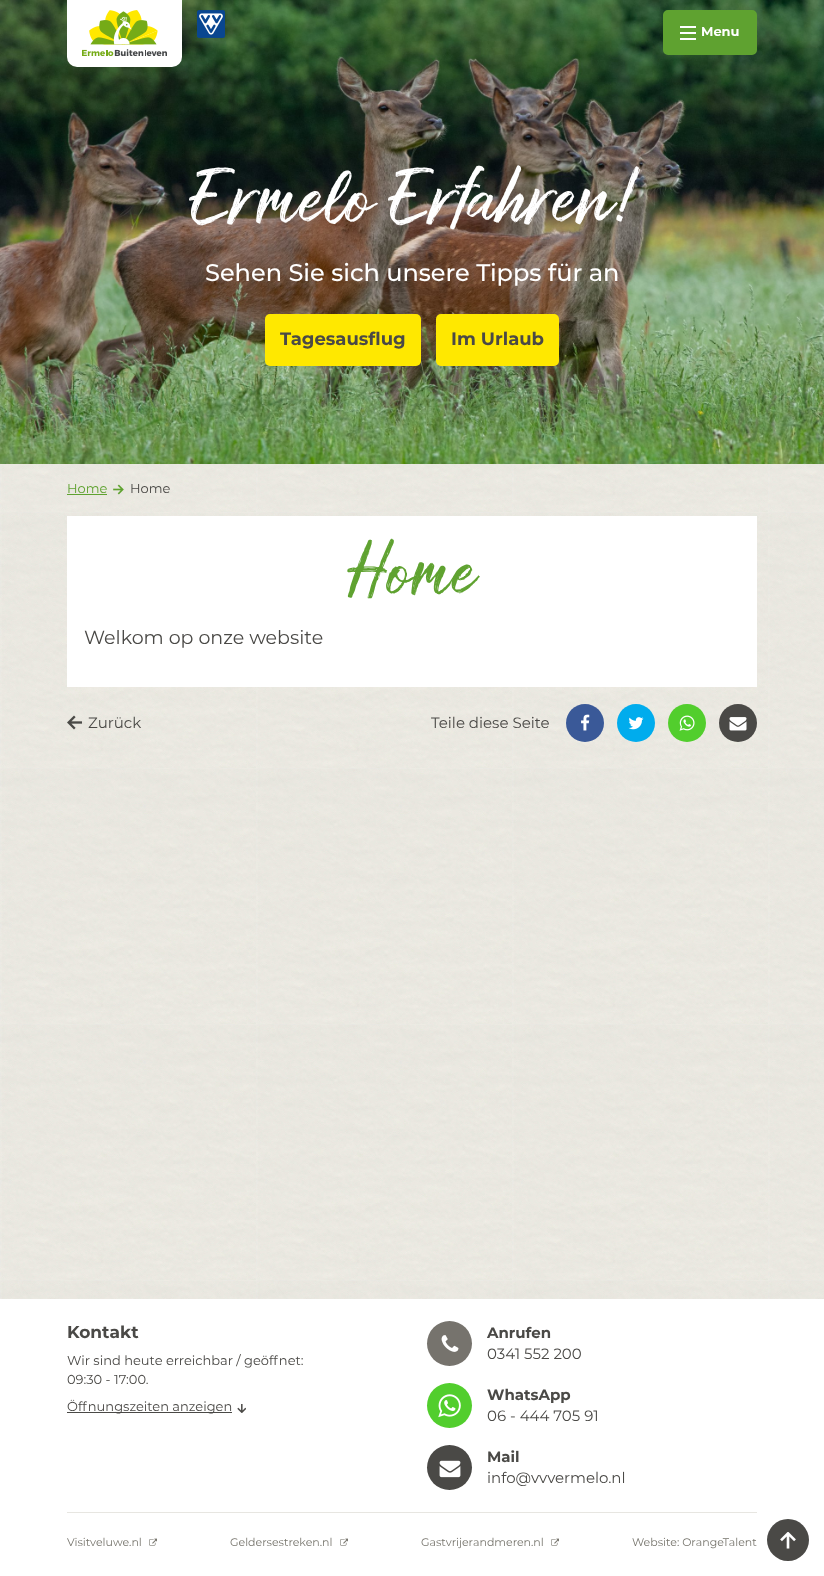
async function draw(canvas) {
  canvas.width = 824;
  canvas.height = 1576;
  const ctx = canvas.getContext('2d');
  ctx.miterLimit = 4;
  ctx.fontKerning = 'normal';
  function label(s, x, y, font, color) {
    ctx.font = font;
    ctx.fillStyle = color;
    ctx.fillText(s, x, y);
  }
  function rect(x, y, w, h, color) {
    ctx.fillStyle = color;
    ctx.fillRect(x, y, w, h);
  }
  function roundedRect(x, y, w, h, r, color) {
    ctx.fillStyle = color;
    ctx.beginPath();
    ctx.roundRect(x, y, w, h, r);
    ctx.fill();
  }
  async function image(src, x, y, w, h) {
    const img = new Image();
    img.src = src;
    await img.decode();
    ctx.drawImage(img, x, y, w, h);
  }

  rect(0, 0, 824, 1576, '#fff');
  await image('assets/img1.png', 0, 464, 824, 835);
  await image('assets/img4.png', 0, 0, 824, 464);
  ctx.beginPath();
  ctx.roundRect(67, 0, 115, 67, [0, 0, 10, 10]);
  ctx.fill();
  await image('assets/img2.png', 82, 10, 85, 46);
  await image('assets/img3.png', 197, 10, 28, 28);
  ctx.fillStyle = '#5fa230';
  ctx.beginPath();
  ctx.roundRect(664, 11, 92, 43, 4);
  ctx.fill();
  ctx.strokeStyle = '#5fa230';
  ctx.lineWidth = 2;
  ctx.stroke();
  rect(680, 32, 16, 2, '#fff');
  rect(680, 26, 16, 2, '#fff');
  rect(680, 38, 16, 2, '#fff');
  label('Menu', 701, 36, 'bold 13px Montserrat', '#fff');
  label('Ermelo Erfahren!', 189, 217, '68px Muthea', '#fff');
  label('Sehen Sie sich unsere Tipps für an', 205, 281, '500 24px Montserrat', '#fff');
  roundedRect(265, 314, 156, 52, 5, '#ffe800');
  label('Tagesausflug', 280, 345, 'bold 18px Montserrat', '#4a4946');
  roundedRect(436, 314, 123, 52, 5, '#ffe800');
  label('Im Urlaub', 451, 345, 'bold 18px Montserrat', '#4a4946');
  label('Home', 67, 493, '13px Montserrat', '#5fa230');
  rect(67, 494, 40, 1, '#5fa230');
  await image('assets/img5.png', 113, 484, 11, 11);
  label('Home', 130, 493, '13px Montserrat', '#4a4946');
  rect(67, 516, 690, 171, '#fff');
  label('Home', 347, 589, '64px Muthea', '#5fa230');
  label('Welkom op onze website', 84, 644, '19px Montserrat', '#4a4946');
  await image('assets/img6.png', 67, 715, 15, 15);
  label('Zurück', 88, 728, '15px Montserrat', '#4a4946');
  label('Teile diese Seite', 431, 728, '15px Montserrat', '#4a4946');
  ctx.fillStyle = '#3a5998';
  ctx.beginPath();
  ctx.arc(585, 723, 19, 0, 2 * Math.PI);
  ctx.fill();
  await image('assets/img7.png', 581, 714, 9, 17);
  ctx.fillStyle = '#00aced';
  ctx.beginPath();
  ctx.arc(636, 723, 19, 0, 2 * Math.PI);
  ctx.fill();
  await image('assets/img8.png', 628, 717, 16, 13);
  ctx.fillStyle = '#52ce2d';
  ctx.beginPath();
  ctx.arc(687, 723, 19, 0, 2 * Math.PI);
  ctx.fill();
  await image('assets/img9.png', 679, 715, 16, 16);
  ctx.fillStyle = '#4a4946';
  ctx.beginPath();
  ctx.arc(738, 723, 19, 0, 2 * Math.PI);
  ctx.fill();
  await image('assets/img10.png', 729, 717, 18, 14);
  label('Kontakt', 67, 1338, 'bold 17px Montserrat', '#4a4946');
  label('Wir sind heute erreichbar / geöffnet:', 67, 1365, '13px Montserrat', '#4a4946');
  label('09:30 - 17:00.', 67, 1384, '13px Montserrat', '#4a4946');
  rect(67, 1412, 165, 1, '#4a4946');
  label('Öffnungszeiten anzeigen', 67, 1411, '13px Montserrat', '#4a4946');
  await image('assets/img11.png', 237, 1404, 9, 9);
  ctx.fillStyle = '#76736d';
  ctx.beginPath();
  ctx.arc(449.5, 1343.5, 22.5, 0, 2 * Math.PI);
  ctx.fill();
  await image('assets/img12.png', 441, 1335, 18, 17);
  label('Anrufen', 487, 1338, 'bold 15px Montserrat', '#4a4946');
  label('0341 552 200', 487, 1359, '15px Montserrat', '#4a4946');
  ctx.fillStyle = '#52ce2d';
  ctx.beginPath();
  ctx.arc(449.5, 1405.5, 22.5, 0, 2 * Math.PI);
  ctx.fill();
  await image('assets/img13.png', 438, 1394, 23, 24);
  label('WhatsApp', 487, 1400, 'bold 15px Montserrat', '#4a4946');
  label('06 - 444 705 91', 487, 1421, '15px Montserrat', '#4a4946');
  ctx.beginPath();
  ctx.arc(449.5, 1467.5, 22.5, 0, 2 * Math.PI);
  ctx.fill();
  await image('assets/img14.png', 439, 1460, 22, 18);
  label('Mail', 487, 1462, 'bold 15px Montserrat', '#4a4946');
  label('info@vvvermelo.nl', 487, 1483, '15px Montserrat', '#4a4946');
  rect(67, 1512, 690, 1, '#e7e6e1');
  label('Visitveluwe.nl', 67, 1546, '11px Montserrat', '#77756d');
  await image('assets/img15.png', 149, 1538, 8, 8);
  label('Geldersestreken.nl', 230, 1546, '11px Montserrat', '#77756d');
  await image('assets/img15.png', 340, 1538, 8, 8);
  label('Gastvrijerandmeren.nl', 421, 1546, '11px Montserrat', '#77756d');
  await image('assets/img15.png', 551, 1538, 8, 8);
  label('Website: OrangeTalent', 632, 1546, '11px Montserrat', '#77756d');
  ctx.fillStyle = '#4a4946';
  ctx.beginPath();
  ctx.arc(788, 1540, 21, 0, 2 * Math.PI);
  ctx.fill();
  await image('assets/img16.png', 780, 1532, 16, 17);
}

draw(document.querySelector('canvas'));
